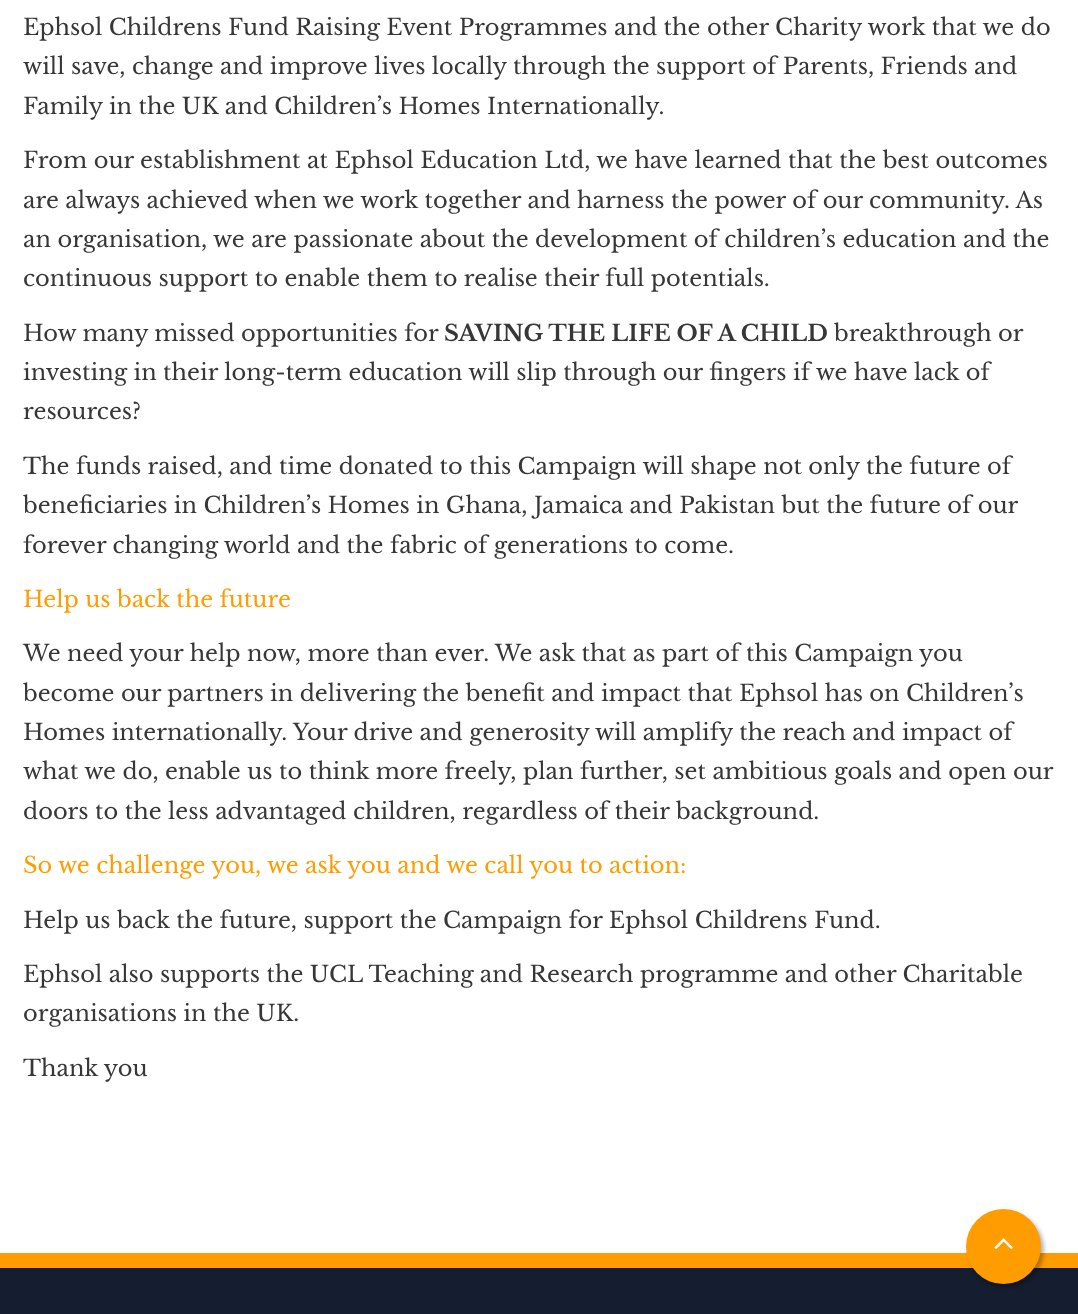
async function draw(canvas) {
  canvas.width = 1078;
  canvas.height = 1314;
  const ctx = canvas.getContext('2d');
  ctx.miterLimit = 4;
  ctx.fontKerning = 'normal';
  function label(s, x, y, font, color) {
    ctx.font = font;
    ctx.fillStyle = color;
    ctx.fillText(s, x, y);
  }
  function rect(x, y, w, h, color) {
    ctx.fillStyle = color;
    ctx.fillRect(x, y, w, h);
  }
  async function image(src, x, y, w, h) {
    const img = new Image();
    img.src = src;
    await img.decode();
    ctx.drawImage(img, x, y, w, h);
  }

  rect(0, 0, 1078, 1314, '#fff');
  label('Ephsol Childrens Fund Raising Event Programmes and the other Charity work that we do', 23, 35, '22.5px Libre Baskerville', '#373737');
  label('will save, change and improve lives locally through the support of Parents, Friends and', 23, 74, '22.5px Libre Baskerville', '#373737');
  label('Family in the UK and Children’s Homes Internationally.', 23, 114, '22.5px Libre Baskerville', '#373737');
  label('From our establishment at Ephsol Education Ltd, we have learned that the best outcomes', 23, 168, '22.5px Libre Baskerville', '#373737');
  label('are always achieved when we work together and harness the power of our community. As', 23, 208, '22.5px Libre Baskerville', '#373737');
  label('an organisation, we are passionate about the development of children’s education and the', 23, 247, '22.5px Libre Baskerville', '#373737');
  label('continuous support to enable them to realise their full potentials.', 23, 286, '22.5px Libre Baskerville', '#373737');
  label('How many missed opportunities for', 23, 341, '22.5px Libre Baskerville', '#373737');
  label('SAVING THE LIFE OF A CHILD', 444, 341, 'bold 22.5px Libre Baskerville', '#373737');
  label('breakthrough or', 834, 341, '22.5px Libre Baskerville', '#373737');
  label('investing in their long-term education will slip through our fingers if we have lack of', 23, 380, '22.5px Libre Baskerville', '#373737');
  label('resources?', 23, 419, '22.5px Libre Baskerville', '#373737');
  label('The funds raised, and time donated to this Campaign will shape not only the future of', 23, 474, '22.5px Libre Baskerville', '#373737');
  label('beneficiaries in Children’s Homes in Ghana, Jamaica and Pakistan but the future of our', 23, 513, '22.5px Libre Baskerville', '#373737');
  label('forever changing world and the fabric of generations to come.', 23, 553, '22.5px Libre Baskerville', '#373737');
  label('Help us back the future', 23, 607, '22.5px Libre Baskerville', '#ff9c00');
  label('We need your help now, more than ever. We ask that as part of this Campaign you', 23, 661, '22.5px Libre Baskerville', '#373737');
  label('become our partners in delivering the benefit and impact that Ephsol has on Children’s', 23, 701, '22.5px Libre Baskerville', '#373737');
  label('Homes internationally. Your drive and generosity will amplify the reach and impact of', 23, 740, '22.5px Libre Baskerville', '#373737');
  label('what we do, enable us to think more freely, plan further, set ambitious goals and open our', 23, 779, '22.5px Libre Baskerville', '#373737');
  label('doors to the less advantaged children, regardless of their background.', 23, 819, '22.5px Libre Baskerville', '#373737');
  label('So we challenge you, we ask you and we call you to action:', 23, 873, '22.5px Libre Baskerville', '#ff9c00');
  label('Help us back the future, support the Campaign for Ephsol Childrens Fund.', 23, 928, '22.5px Libre Baskerville', '#373737');
  label('Ephsol also supports the UCL Teaching and Research programme and other Charitable', 23, 982, '22.5px Libre Baskerville', '#373737');
  label('organisations in the UK.', 23, 1021, '22.5px Libre Baskerville', '#373737');
  label('Thank you', 23, 1076, '22.5px Libre Baskerville', '#373737');
  rect(0, 1268, 1078, 46, '#151d30');
  rect(0, 1253, 1078, 15, '#ff9c00');
  ctx.fillStyle = '#0000004d';
  ctx.filter = 'blur(2px)';
  ctx.beginPath();
  ctx.roundRect(969, 1212, 75, 75, 37.5);
  ctx.fill();
  ctx.filter = 'none';
  ctx.fillStyle = '#ff9c00';
  ctx.beginPath();
  ctx.arc(1003.5, 1246.5, 37.5, 0, 2 * Math.PI);
  ctx.fill();
  await image('assets/img1.png', 994, 1238, 19, 11);
}

draw(document.querySelector('canvas'));
